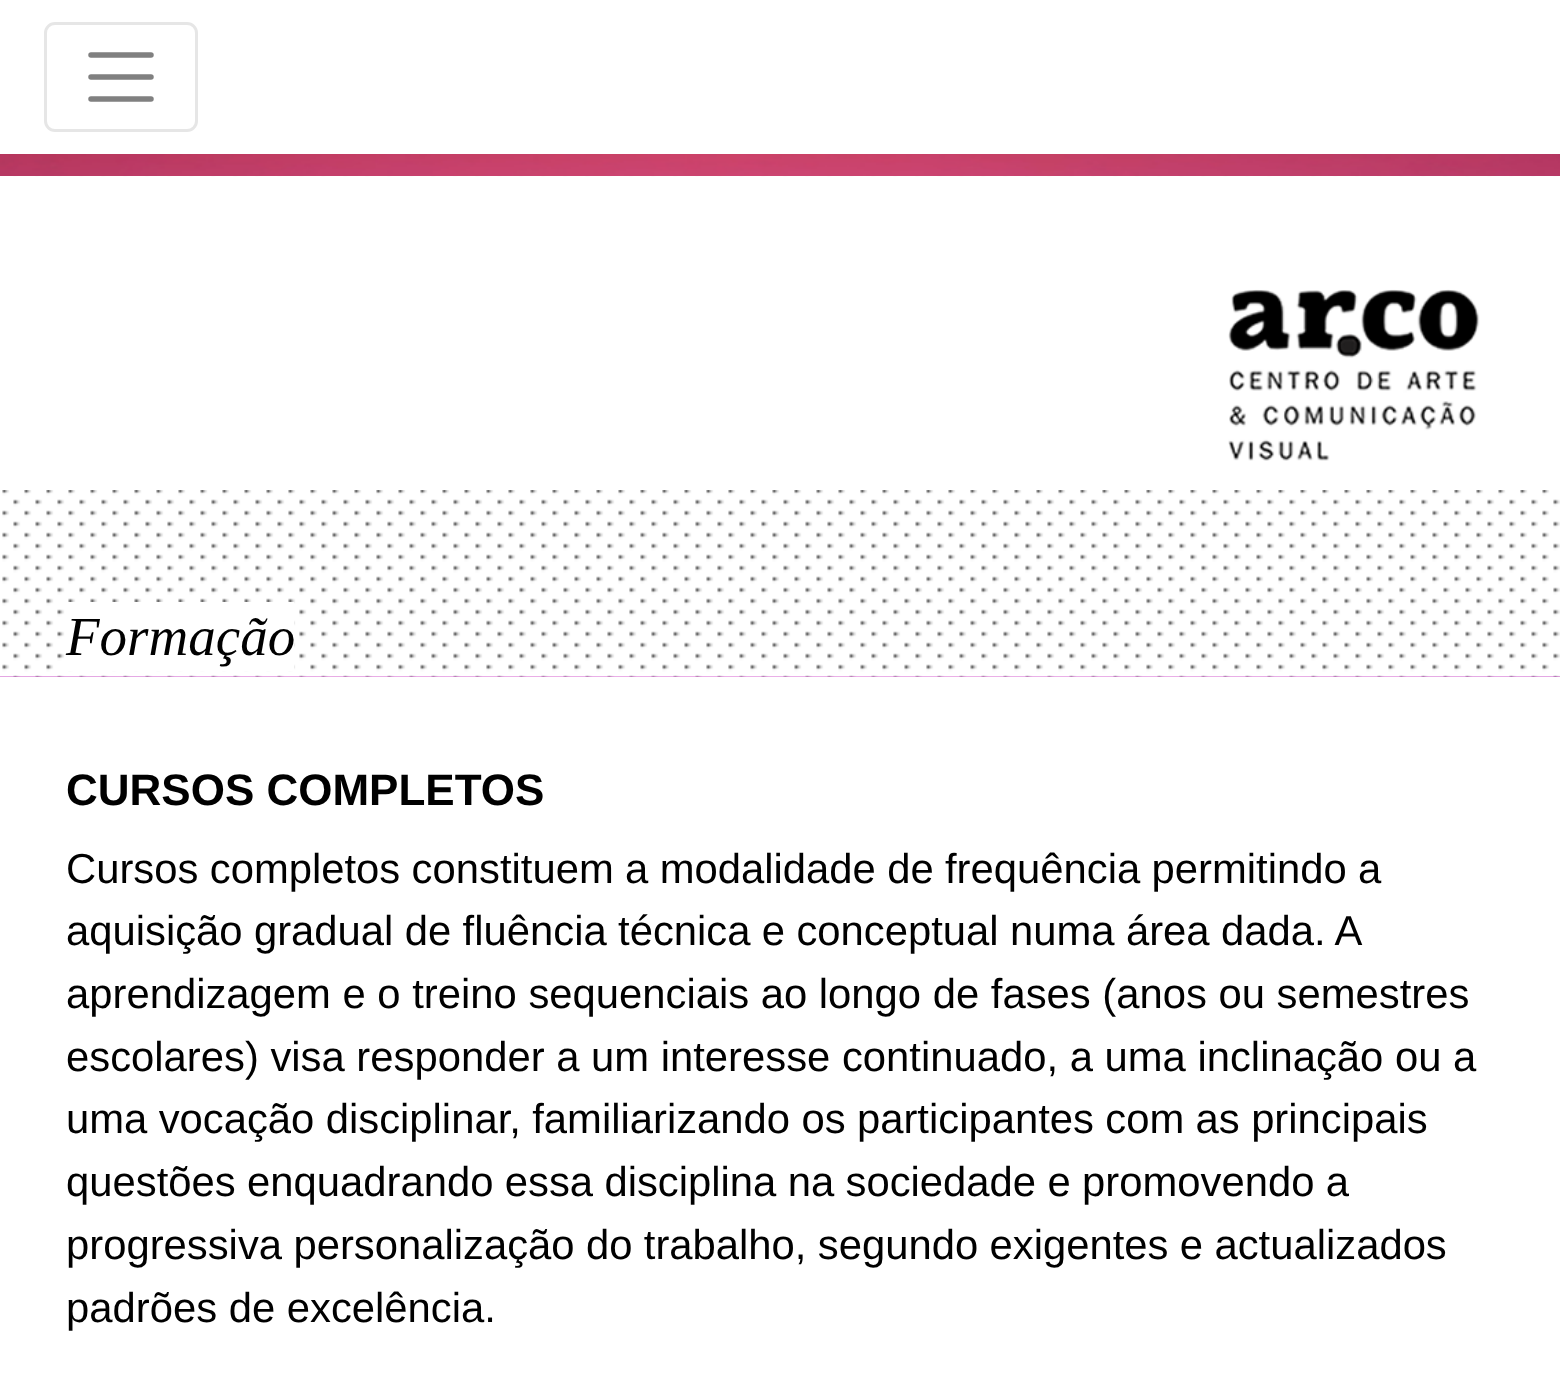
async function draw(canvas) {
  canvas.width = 1560;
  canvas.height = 1386;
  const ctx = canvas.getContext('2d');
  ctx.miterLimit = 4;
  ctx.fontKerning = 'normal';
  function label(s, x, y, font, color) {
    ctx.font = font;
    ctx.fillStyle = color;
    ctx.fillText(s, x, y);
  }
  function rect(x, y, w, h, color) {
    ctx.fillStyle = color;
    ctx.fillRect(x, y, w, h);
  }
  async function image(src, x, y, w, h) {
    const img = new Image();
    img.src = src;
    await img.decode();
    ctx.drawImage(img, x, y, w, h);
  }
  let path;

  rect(0, 0, 1560, 1386, '#fff');
  await image('assets/img1.png', 0, 154, 1560, 523);
  ctx.beginPath();
  ctx.roundRect(45.5, 23.5, 151, 107, 9.5);
  ctx.strokeStyle = '#e6e6e6';
  ctx.lineWidth = 3;
  ctx.stroke();
  path = new Path2D('M91 55H151M91 77H151M91 99H151');
  ctx.strokeStyle = '#808080';
  ctx.lineWidth = 5.5;
  ctx.lineCap = 'round';
  ctx.stroke(path);
  await image('assets/img2.png', 0, 176, 1560, 501);
  rect(2, 180, 1558, 310, '#fff');
  await image('assets/img3.png', 1228, 289, 252, 172);
  rect(68, 602, 226, 69, '#fff');
  label('Formação', 66, 655, 'italic 55px Liberation Serif', '#000');
  label('CURSOS COMPLETOS', 66, 805, 'bold 44px Liberation Sans', '#000');
  ctx.wordSpacing = '-0.25px';
  label('Cursos completos constituem a modalidade de frequência permitindo a', 66, 883, '41.8px Liberation Sans', '#000');
  label('aquisição gradual de fluência técnica e conceptual numa área dada. A', 66, 945, '41.8px Liberation Sans', '#000');
  ctx.wordSpacing = '0px';
  label('aprendizagem e o treino sequenciais ao longo de fases (anos ou semestres', 66, 1008, '41.8px Liberation Sans', '#000');
  label('escolares) visa responder a um interesse continuado, a uma inclinação ou a', 66, 1071, '41.8px Liberation Sans', '#000');
  ctx.wordSpacing = '-0.25px';
  label('uma vocação disciplinar, familiarizando os participantes com as principais', 66, 1133, '41.8px Liberation Sans', '#000');
  label('questões enquadrando essa disciplina na sociedade e promovendo a', 66, 1196, '41.8px Liberation Sans', '#000');
  label('progressiva personalização do trabalho, segundo exigentes e actualizados', 66, 1259, '41.8px Liberation Sans', '#000');
  ctx.wordSpacing = '0px';
  label('padrões de excelência.', 66, 1322, '41.8px Liberation Sans', '#000');
}

draw(document.querySelector('canvas'));
